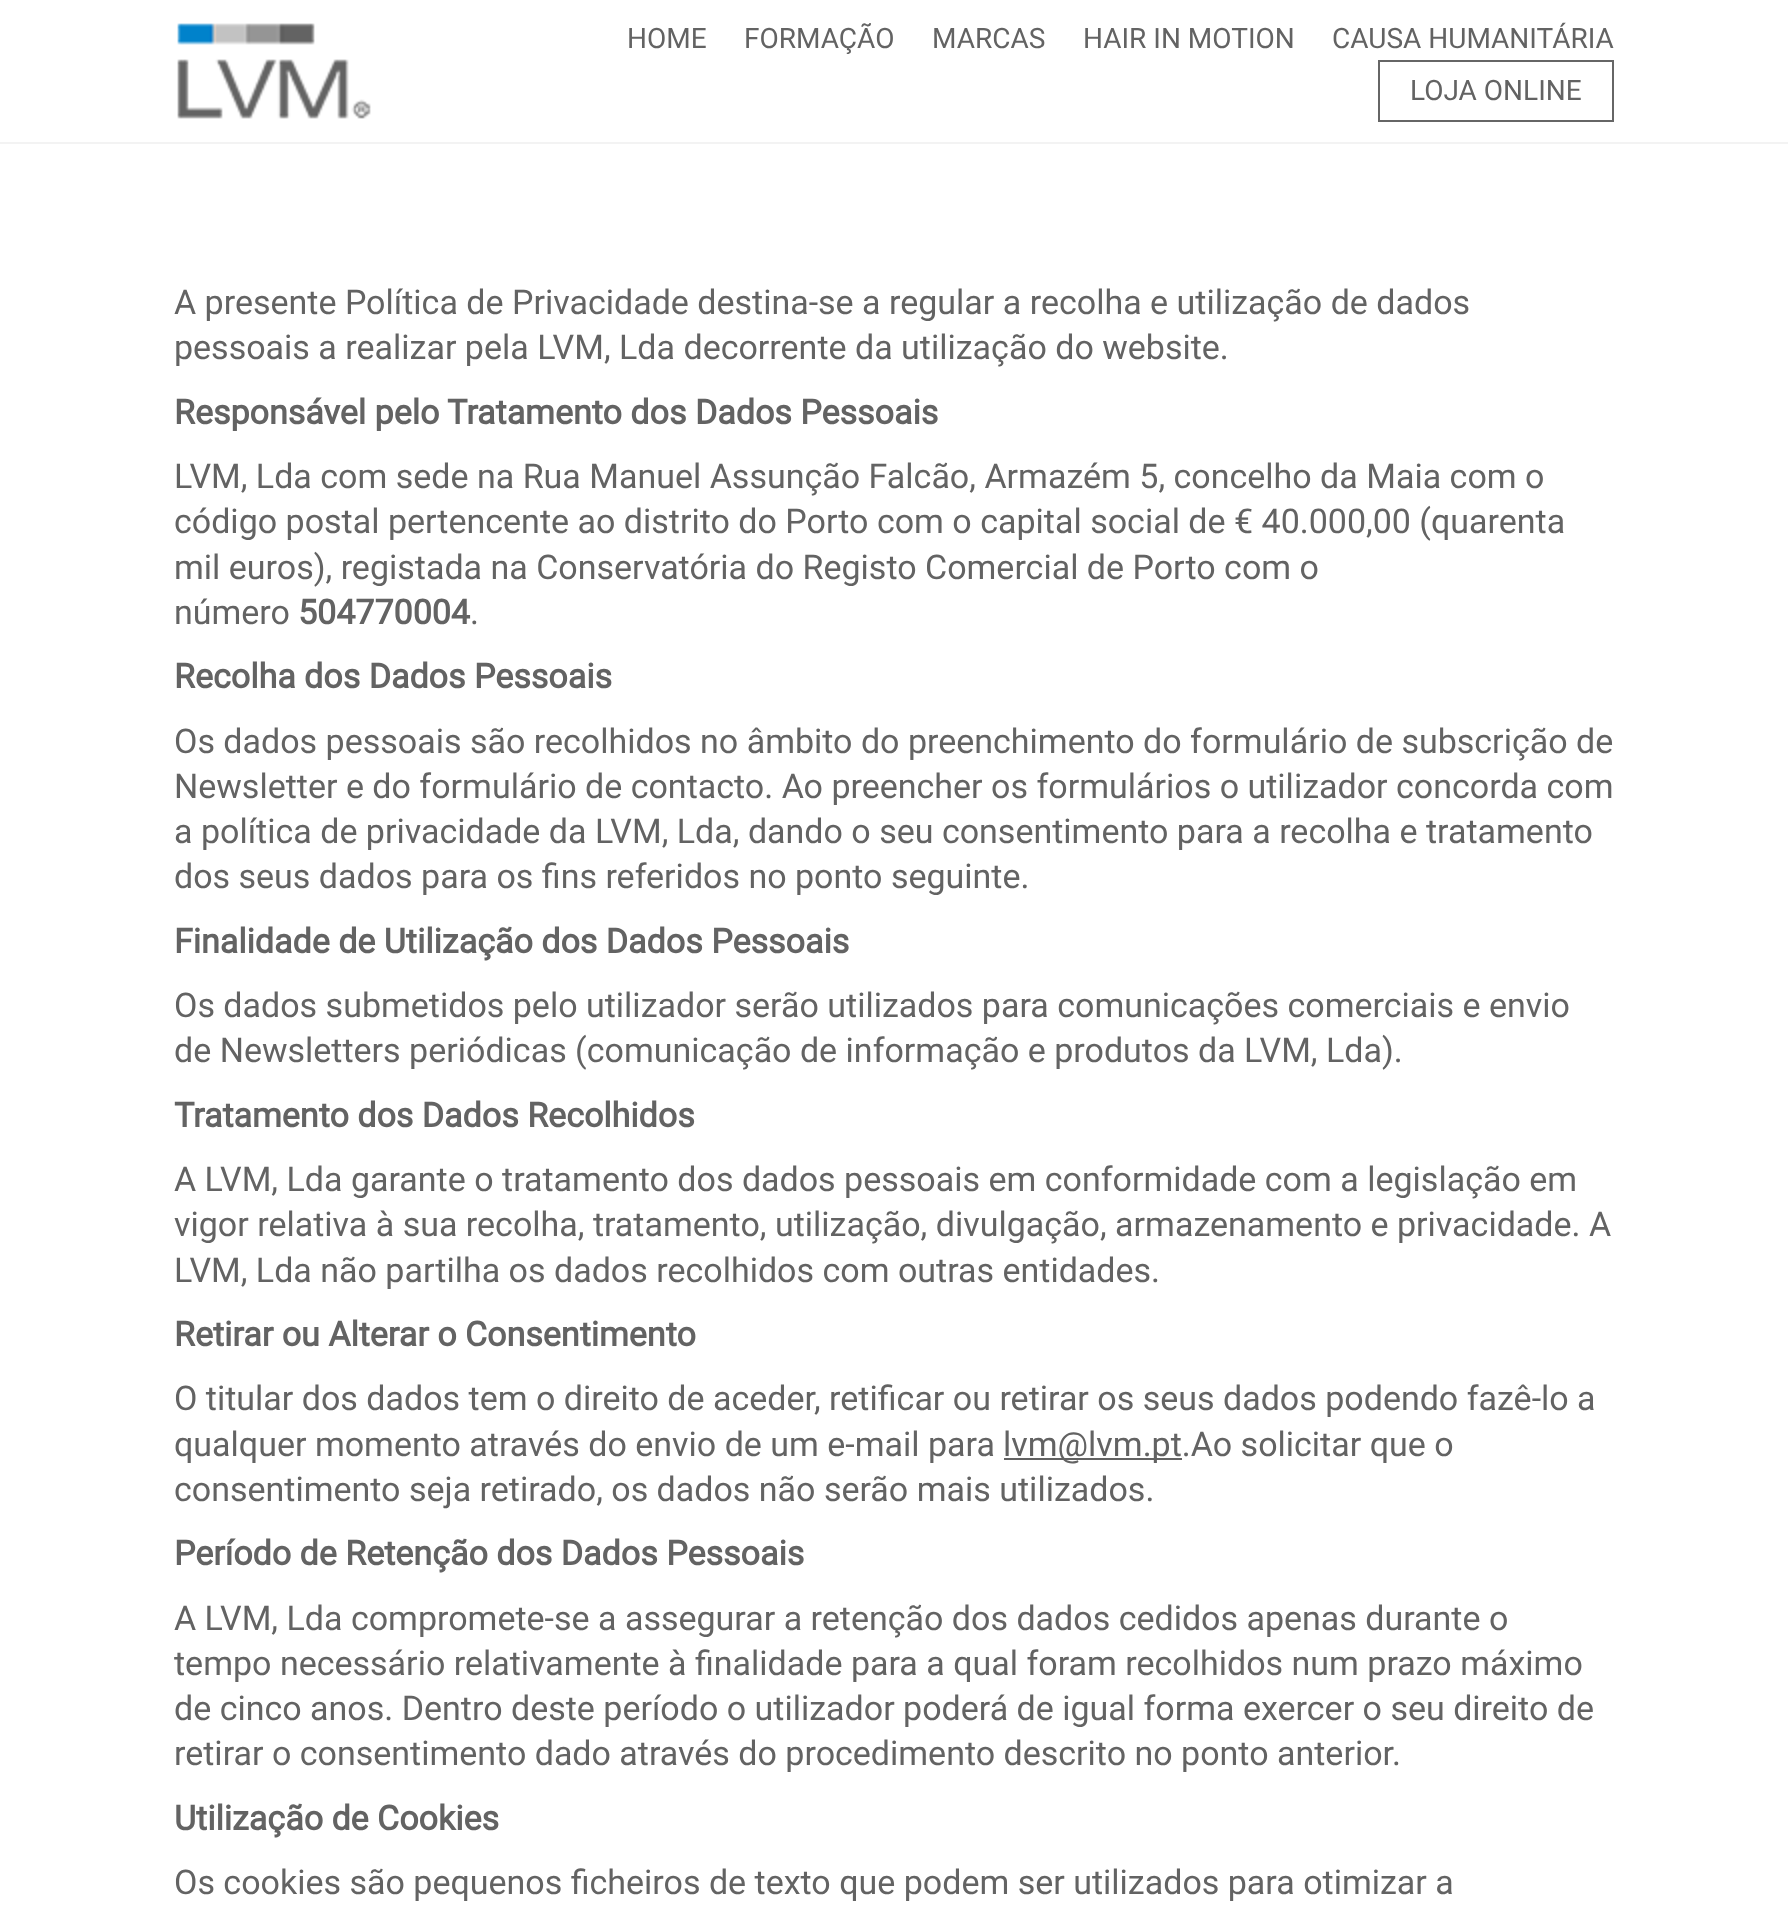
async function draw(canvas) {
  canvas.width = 1788;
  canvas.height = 1929;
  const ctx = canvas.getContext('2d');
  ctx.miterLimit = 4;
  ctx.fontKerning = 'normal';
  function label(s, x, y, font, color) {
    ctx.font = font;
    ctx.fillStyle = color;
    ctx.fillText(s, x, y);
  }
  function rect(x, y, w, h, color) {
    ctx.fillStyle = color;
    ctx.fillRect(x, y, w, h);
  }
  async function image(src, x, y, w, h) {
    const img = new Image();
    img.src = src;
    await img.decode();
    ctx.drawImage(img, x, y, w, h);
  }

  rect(0, 0, 1788, 1929, '#fff');
  rect(0, 142, 1788, 2, '#f3f3f3');
  await image('assets/img1.png', 177, 23, 194, 96);
  label('HOME', 627, 48, '28px Roboto', '#636363');
  label('FORMAÇÃO', 744, 48, '28px Roboto', '#636363');
  label('MARCAS', 932, 48, '28px Roboto', '#636363');
  label('HAIR IN MOTION', 1083, 48, '28px Roboto', '#636363');
  label('CAUSA HUMANITÁRIA', 1332, 48, '28px Roboto', '#636363');
  ctx.strokeStyle = '#666';
  ctx.lineWidth = 2;
  ctx.strokeRect(1379, 61, 234, 60);
  label('LOJA ONLINE', 1410, 100, '28px Roboto', '#636363');
  label('A presente Política de Privacidade destina-se a regular a recolha e utilização de dados', 174, 314, '34px Roboto', '#636363');
  label('pessoais a realizar pela LVM, Lda decorrente da utilização do website.', 174, 359, '34px Roboto', '#636363');
  label('Responsável pelo Tratamento dos Dados Pessoais', 174, 424, 'bold 34px Roboto', '#636363');
  label('LVM, Lda com sede na Rua Manuel Assunção Falcão, Armazém 5, concelho da Maia com o', 174, 488, '34px Roboto', '#636363');
  label('código postal pertencente ao distrito do Porto com o capital social de € 40.000,00 (quarenta', 174, 533, '34px Roboto', '#636363');
  label('mil euros), registada na Conservatória do Registo Comercial de Porto com o', 174, 579, '34px Roboto', '#636363');
  label('número', 174, 624, '34px Roboto', '#636363');
  label('504770004', 298, 624, 'bold 34px Roboto', '#636363');
  label('.', 470, 624, '34px Roboto', '#636363');
  label('Recolha dos Dados Pessoais', 174, 688, 'bold 34px Roboto', '#636363');
  label('Os dados pessoais são recolhidos no âmbito do preenchimento do formulário de subscrição de', 174, 753, '34px Roboto', '#636363');
  label('Newsletter e do formulário de contacto. Ao preencher os formulários o utilizador concorda com', 174, 798, '34px Roboto', '#636363');
  label('a política de privacidade da LVM, Lda, dando o seu consentimento para a recolha e tratamento', 174, 843, '34px Roboto', '#636363');
  label('dos seus dados para os fins referidos no ponto seguinte.', 174, 888, '34px Roboto', '#636363');
  label('Finalidade de Utilização dos Dados Pessoais', 174, 953, 'bold 34px Roboto', '#636363');
  label('Os dados submetidos pelo utilizador serão utilizados para comunicações comerciais e envio', 174, 1017, '34px Roboto', '#636363');
  label('de Newsletters periódicas (comunicação de informação e produtos da LVM, Lda).', 174, 1062, '34px Roboto', '#636363');
  label('Tratamento dos Dados Recolhidos', 174, 1127, 'bold 34px Roboto', '#636363');
  label('A LVM, Lda garante o tratamento dos dados pessoais em conformidade com a legislação em', 174, 1191, '34px Roboto', '#636363');
  label('vigor relativa à sua recolha, tratamento, utilização, divulgação, armazenamento e privacidade. A', 174, 1236, '34px Roboto', '#636363');
  label('LVM, Lda não partilha os dados recolhidos com outras entidades.', 174, 1282, '34px Roboto', '#636363');
  label('Retirar ou Alterar o Consentimento', 174, 1346, 'bold 34px Roboto', '#636363');
  label('O titular dos dados tem o direito de aceder, retificar ou retirar os seus dados podendo fazê-lo a', 174, 1410, '34px Roboto', '#636363');
  label('qualquer momento através do envio de um e-mail para', 174, 1456, '34px Roboto', '#636363');
  rect(1004, 1458, 178, 2, '#636363');
  label('lvm@lvm.pt.Ao solicitar que o', 1003, 1456, '34px Roboto', '#636363');
  label('consentimento seja retirado, os dados não serão mais utilizados.', 174, 1501, '34px Roboto', '#636363');
  label('Período de Retenção dos Dados Pessoais', 174, 1565, 'bold 34px Roboto', '#636363');
  label('A LVM, Lda compromete-se a assegurar a retenção dos dados cedidos apenas durante o', 174, 1630, '34px Roboto', '#636363');
  label('tempo necessário relativamente à finalidade para a qual foram recolhidos num prazo máximo', 174, 1675, '34px Roboto', '#636363');
  label('de cinco anos. Dentro deste período o utilizador poderá de igual forma exercer o seu direito de', 174, 1720, '34px Roboto', '#636363');
  label('retirar o consentimento dado através do procedimento descrito no ponto anterior.', 174, 1765, '34px Roboto', '#636363');
  label('Utilização de Cookies', 174, 1830, 'bold 34px Roboto', '#636363');
  label('Os cookies são pequenos ficheiros de texto que podem ser utilizados para otimizar a', 174, 1894, '34px Roboto', '#636363');
}

draw(document.querySelector('canvas'));
